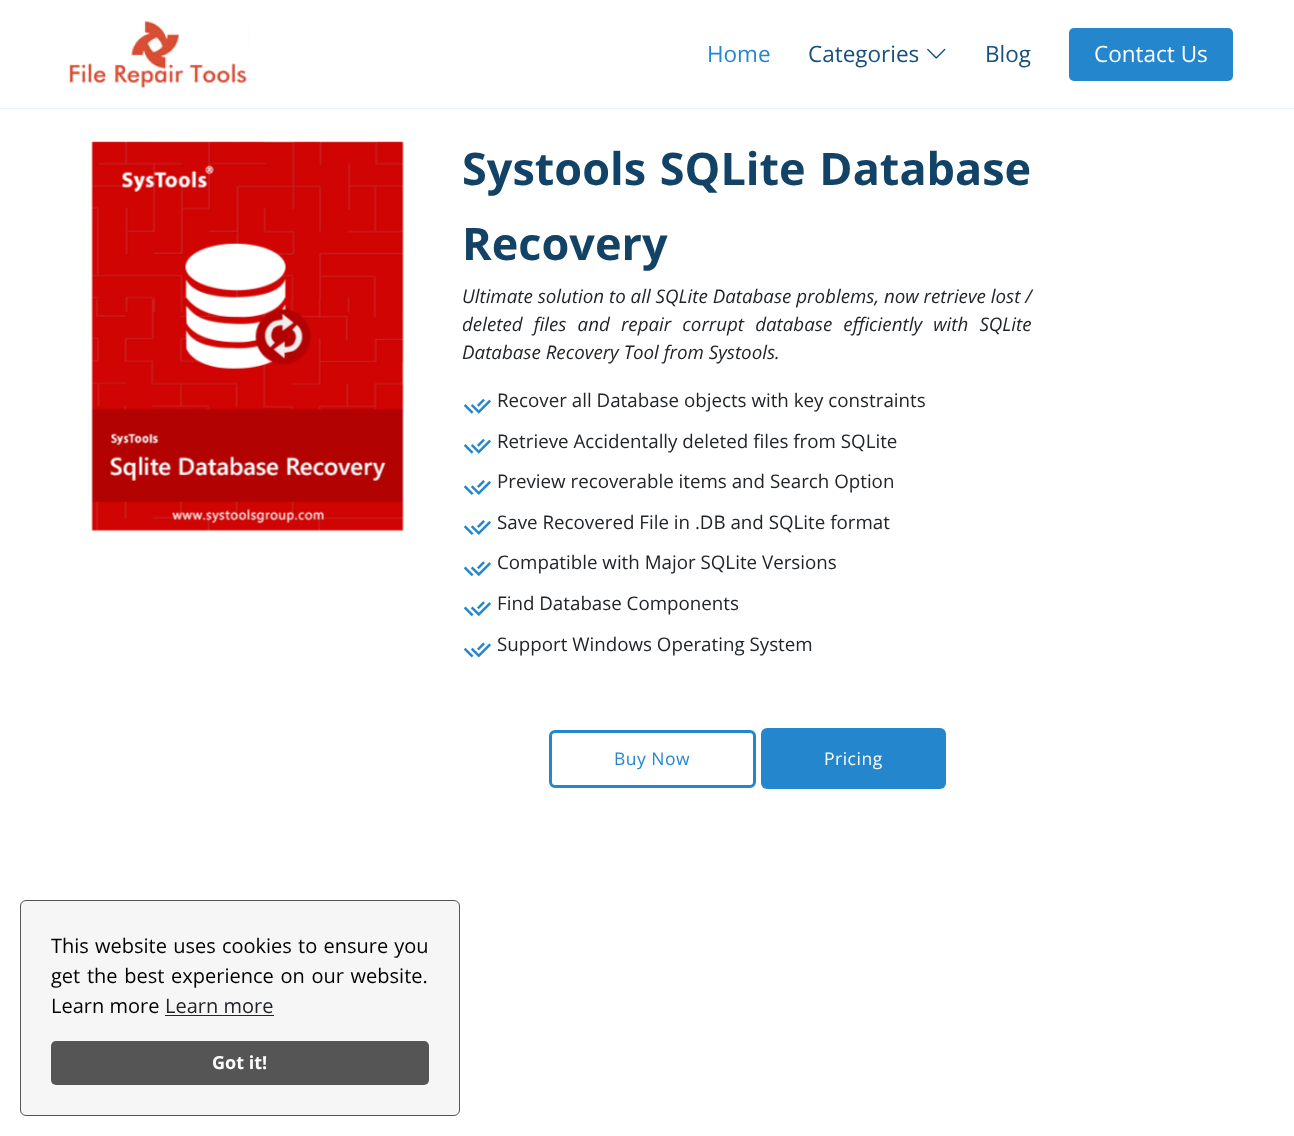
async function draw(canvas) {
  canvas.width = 1294;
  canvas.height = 1136;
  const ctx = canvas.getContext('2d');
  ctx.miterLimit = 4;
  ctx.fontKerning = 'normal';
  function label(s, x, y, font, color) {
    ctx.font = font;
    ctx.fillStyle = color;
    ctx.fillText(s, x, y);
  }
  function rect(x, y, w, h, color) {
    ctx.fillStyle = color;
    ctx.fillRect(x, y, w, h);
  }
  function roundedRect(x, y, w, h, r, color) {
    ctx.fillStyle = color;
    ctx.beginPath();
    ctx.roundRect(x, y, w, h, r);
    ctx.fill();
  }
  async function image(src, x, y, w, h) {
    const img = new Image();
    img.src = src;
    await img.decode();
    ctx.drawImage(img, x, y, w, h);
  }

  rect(0, 0, 1294, 1136, '#fff');
  rect(0, 108, 1294, 1, '#e6f2fb');
  await image('assets/img1.png', 64, 19, 186, 69);
  label('Home', 707, 62, '22.5px Open Sans', '#2487ce');
  label('Categories', 808, 62, '22.5px Open Sans', '#16507b');
  await image('assets/img2.png', 927, 48, 19, 11);
  label('Blog', 985, 62, '22.5px Open Sans', '#16507b');
  roundedRect(1069, 28, 164, 53, 5, '#2487ce');
  label('Contact Us', 1094, 62, '22.5px Open Sans', '#fff');
  await image('assets/img3.png', 91, 141, 313, 390);
  ctx.wordSpacing = '2px';
  label('Systools SQLite Database', 462, 185, 'bold 45px Open Sans', '#124265');
  ctx.wordSpacing = '0px';
  label('Recovery', 462, 260, 'bold 45px Open Sans', '#124265');
  label('Ultimate solution to all SQLite Database problems, now retrieve lost /', 462, 303, 'italic 18.75px Open Sans', '#212529');
  ctx.wordSpacing = '6.25px';
  label('deleted files and repair corrupt database efficiently with SQLite', 462, 331, 'italic 18.75px Open Sans', '#212529');
  ctx.wordSpacing = '0px';
  label('Database Recovery Tool from Systools.', 462, 359, 'italic 18.75px Open Sans', '#212529');
  await image('assets/img4.png', 463, 398, 28, 16);
  label('Recover all Database objects with key constraints', 497, 407, '18.75px Open Sans', '#212529');
  await image('assets/img4.png', 463, 438, 28, 16);
  label('Retrieve Accidentally deleted files from SQLite', 497, 448, '18.75px Open Sans', '#212529');
  await image('assets/img5.png', 463, 480, 28, 15);
  label('Preview recoverable items and Search Option', 497, 488, '18.75px Open Sans', '#212529');
  await image('assets/img5.png', 463, 520, 28, 15);
  label('Save Recovered File in .DB and SQLite format', 497, 529, '18.75px Open Sans', '#212529');
  await image('assets/img6.png', 463, 561, 28, 16);
  label('Compatible with Major SQLite Versions', 497, 569, '18.75px Open Sans', '#212529');
  await image('assets/img6.png', 463, 601, 28, 16);
  label('Find Database Components', 497, 610, '18.75px Open Sans', '#212529');
  await image('assets/img7.png', 463, 642, 28, 16);
  label('Support Windows Operating System', 497, 651, '18.75px Open Sans', '#212529');
  ctx.beginPath();
  ctx.roundRect(550.5, 731.5, 204, 55, 4.5);
  ctx.strokeStyle = '#2487ce';
  ctx.lineWidth = 3;
  ctx.stroke();
  ctx.letterSpacing = '0.5px';
  label('Buy Now', 614, 765, '17.5px Open Sans', '#2487ce');
  roundedRect(761, 728, 185, 61, 6, '#2487ce');
  label('Pricing', 824, 765, '17.5px Open Sans', '#fff');
  ctx.fillStyle = '#f6f6f6';
  ctx.beginPath();
  ctx.roundRect(20.5, 900.5, 439, 215, 5.5);
  ctx.fill();
  ctx.strokeStyle = '#555';
  ctx.lineWidth = 1;
  ctx.stroke();
  ctx.letterSpacing = '0px';
  ctx.wordSpacing = '1px';
  label('This website uses cookies to ensure you', 51, 953, '20px Open Sans', '#000');
  ctx.wordSpacing = '1.5px';
  label('get the best experience on our website.', 51, 983, '20px Open Sans', '#000');
  ctx.wordSpacing = '0px';
  label('Learn more', 51, 1013, '20px Open Sans', '#000');
  label('Learn more', 165, 1013, '20px Open Sans', '#212529');
  rect(165, 1015, 109, 1, '#252525');
  roundedRect(51, 1041, 378, 44, 5, '#555');
  label('Got it!', 212, 1069, 'bold 18px Open Sans', '#fff');
}

draw(document.querySelector('canvas'));
